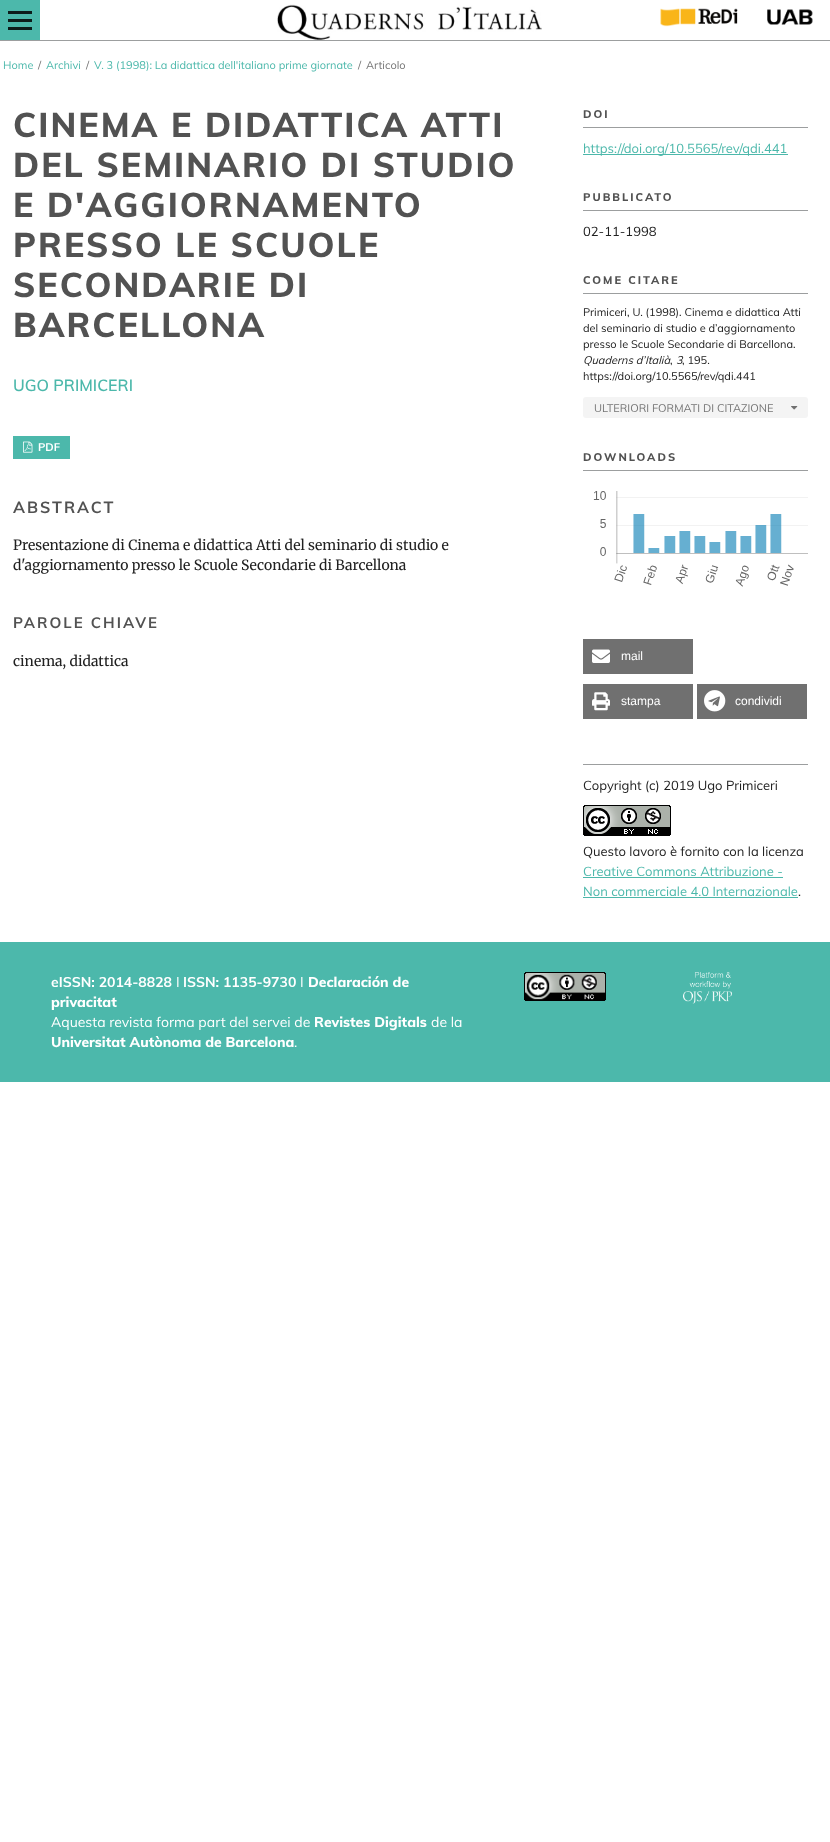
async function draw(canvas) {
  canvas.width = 830;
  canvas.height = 1842;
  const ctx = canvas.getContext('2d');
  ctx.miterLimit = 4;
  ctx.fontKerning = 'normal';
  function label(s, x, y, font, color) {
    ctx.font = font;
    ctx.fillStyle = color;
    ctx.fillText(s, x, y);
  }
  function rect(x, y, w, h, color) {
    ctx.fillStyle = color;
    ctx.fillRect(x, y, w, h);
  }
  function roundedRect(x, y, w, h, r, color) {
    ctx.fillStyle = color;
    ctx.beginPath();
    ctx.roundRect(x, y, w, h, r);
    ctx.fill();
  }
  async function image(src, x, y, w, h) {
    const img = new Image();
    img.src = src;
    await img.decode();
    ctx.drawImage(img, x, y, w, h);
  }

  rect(0, 0, 830, 1842, '#fff');
  rect(0, 40, 830, 1, '#9c9e9f');
  rect(0, 0, 40, 40, '#4cb8ab');
  rect(8, 27, 24, 3, '#0c1d1b');
  rect(8, 11, 24, 3, '#0c1d1b');
  rect(8, 19, 24, 3, '#0c1d1b');
  await image('assets/img1.png', 277, 4, 265, 36);
  await image('assets/img2.png', 660, 8, 78, 19);
  await image('assets/img3.png', 767, 9, 46, 16);
  label('Home', 3, 69, '11px Muli', '#4cb8ab');
  label('/', 38, 69, '11px Muli', '#757575');
  label('Archivi', 46, 69, '11px Muli', '#4cb8ab');
  label('/', 86, 69, '11px Muli', '#757575');
  label('V. 3 (1998): La didattica dell\'italiano prime giornate', 94, 69, '11px Muli', '#4cb8ab');
  label('/', 358, 69, '11px Muli', '#757575');
  label('Articolo', 366, 69, '11px Muli', '#757575');
  ctx.letterSpacing = '2px';
  label('CINEMA E DIDATTICA ATTI', 13, 137, '800 34px Muli', '#525252');
  label('DEL SEMINARIO DI STUDIO', 13, 177, '800 34px Muli', '#525252');
  label('E D\'AGGIORNAMENTO', 13, 217, '800 34px Muli', '#525252');
  label('PRESSO LE SCUOLE', 13, 257, '800 34px Muli', '#525252');
  label('SECONDARIE DI', 13, 297, '800 34px Muli', '#525252');
  label('BARCELLONA', 13, 337, '800 34px Muli', '#525252');
  ctx.letterSpacing = '0px';
  label('UGO PRIMICERI', 13, 391, '600 16px Muli', '#4cb8ab');
  rect(13, 436, 57, 23, '#4cb8ab');
  await image('assets/img4.png', 23, 441, 10, 12);
  label('PDF', 38, 451, 'bold 11px Muli', '#fff');
  ctx.letterSpacing = '2px';
  label('ABSTRACT', 13, 513, 'bold 16px Muli', '#525252');
  ctx.letterSpacing = '0px';
  label('Presentazione di Cinema e didattica Atti del seminario di studio e', 13, 550, '14px Merriweather', '#212121');
  label('d\'aggiornamento presso le Scuole Secondarie di Barcellona', 13, 570, '14px Merriweather', '#212121');
  ctx.letterSpacing = '2px';
  label('PAROLE CHIAVE', 13, 628, 'bold 15px Muli', '#525252');
  ctx.letterSpacing = '0px';
  label('cinema, didattica', 13, 666, '14px Merriweather', '#212121');
  rect(583, 127, 225, 1, '#9c9e9f');
  ctx.letterSpacing = '2px';
  label('DOI', 583, 118, '800 11px Muli', '#525252');
  rect(583, 154, 205, 1, '#4cb8ab');
  ctx.letterSpacing = '0px';
  label('https://doi.org/10.5565/rev/qdi.441', 583, 153, '13px Muli', '#4cb8ab');
  rect(583, 210, 225, 1, '#9c9e9f');
  ctx.letterSpacing = '2px';
  label('PUBBLICATO', 583, 201, '800 11px Muli', '#525252');
  ctx.letterSpacing = '0px';
  label('02-11-1998', 583, 236, '13px Muli', '#212121');
  rect(583, 293, 225, 1, '#9c9e9f');
  ctx.letterSpacing = '2px';
  label('COME CITARE', 583, 284, '800 11px Muli', '#525252');
  ctx.letterSpacing = '0px';
  label('Primiceri, U. (1998). Cinema e didattica Atti', 583, 316, '11px Muli', '#212121');
  label('del seminario di studio e d’aggiornamento', 583, 332, '11px Muli', '#212121');
  label('presso le Scuole Secondarie di Barcellona.', 583, 348, '11px Muli', '#212121');
  label('Quaderns d’Italià', 583, 364, 'italic 11px Muli', '#212121');
  label(',', 670, 364, '11px Muli', '#212121');
  label('3', 676, 364, 'italic 11px Muli', '#212121');
  label(', 195.', 682, 364, '11px Muli', '#212121');
  label('https://doi.org/10.5565/rev/qdi.441', 583, 380, '11px Muli', '#212121');
  roundedRect(583, 397, 225, 21, 3, '#f4f4f4');
  label('ULTERIORI FORMATI DI CITAZIONE', 594, 412, '11px Muli', '#757575');
  await image('assets/img5.png', 791, 406, 7, 4);
  rect(583, 470, 225, 1, '#9c9e9f');
  ctx.letterSpacing = '2px';
  label('DOWNLOADS', 583, 461, '800 11px Muli', '#525252');
  await image('assets/img6.png', 593, 491, 215, 96);
  rect(583, 639, 110, 35, '#707070');
  await image('assets/img7.png', 592, 649, 18, 14);
  ctx.letterSpacing = '0px';
  label('mail', 621, 660, '12px Liberation Sans', '#fff');
  rect(583, 684, 110, 35, '#707070');
  await image('assets/img8.png', 592, 692, 18, 19);
  label('stampa', 621, 705, '12px Liberation Sans', '#fff');
  rect(697, 684, 110, 35, '#707070');
  await image('assets/img9.png', 704, 690, 22, 22);
  label('condividi', 735, 705, '12px Liberation Sans', '#fff');
  rect(583, 764, 225, 1, '#9c9e9f');
  label('Copyright (c) 2019 Ugo Primiceri', 583, 790, '13px Muli', '#212121');
  await image('assets/img10.png', 583, 805, 88, 31);
  label('Questo lavoro è fornito con la licenza', 583, 856, '13px Muli', '#212121');
  label('Creative Commons Attribuzione -', 583, 876, '13px Muli', '#4cb8ab');
  rect(583, 877, 200, 1, '#4cb8ab');
  label('Non commerciale 4.0 Internazionale', 583, 896, '13px Muli', '#4cb8ab');
  rect(583, 897, 215, 1, '#4cb8ab');
  label('.', 798, 896, '13px Muli', '#212121');
  rect(0, 942, 830, 140, '#4cb8ab');
  label('eISSN: 2014-8828', 51, 987, 'bold 14px Muli', '#fff');
  label('I', 176, 987, '14px Muli', '#fff');
  label('ISSN: 1135-9730', 183, 987, 'bold 14px Muli', '#fff');
  label('I', 300, 987, '14px Muli', '#fff');
  label('Declaración de', 308, 987, '800 14px Muli', '#fff');
  label('privacitat', 51, 1007, '800 14px Muli', '#fff');
  label('Aquesta revista forma part del servei de', 51, 1027, '14px Muli', '#fff');
  label('Revistes Digitals', 314, 1027, '800 14px Muli', '#fff');
  label('de la', 431, 1027, '14px Muli', '#fff');
  label('Universitat Autònoma de Barcelona', 51, 1047, '800 14px Muli', '#fff');
  label('.', 294, 1047, '14px Muli', '#fff');
  await image('assets/img11.png', 524, 972, 82, 29);
  await image('assets/img12.png', 683, 972, 49, 32);
}

draw(document.querySelector('canvas'));
